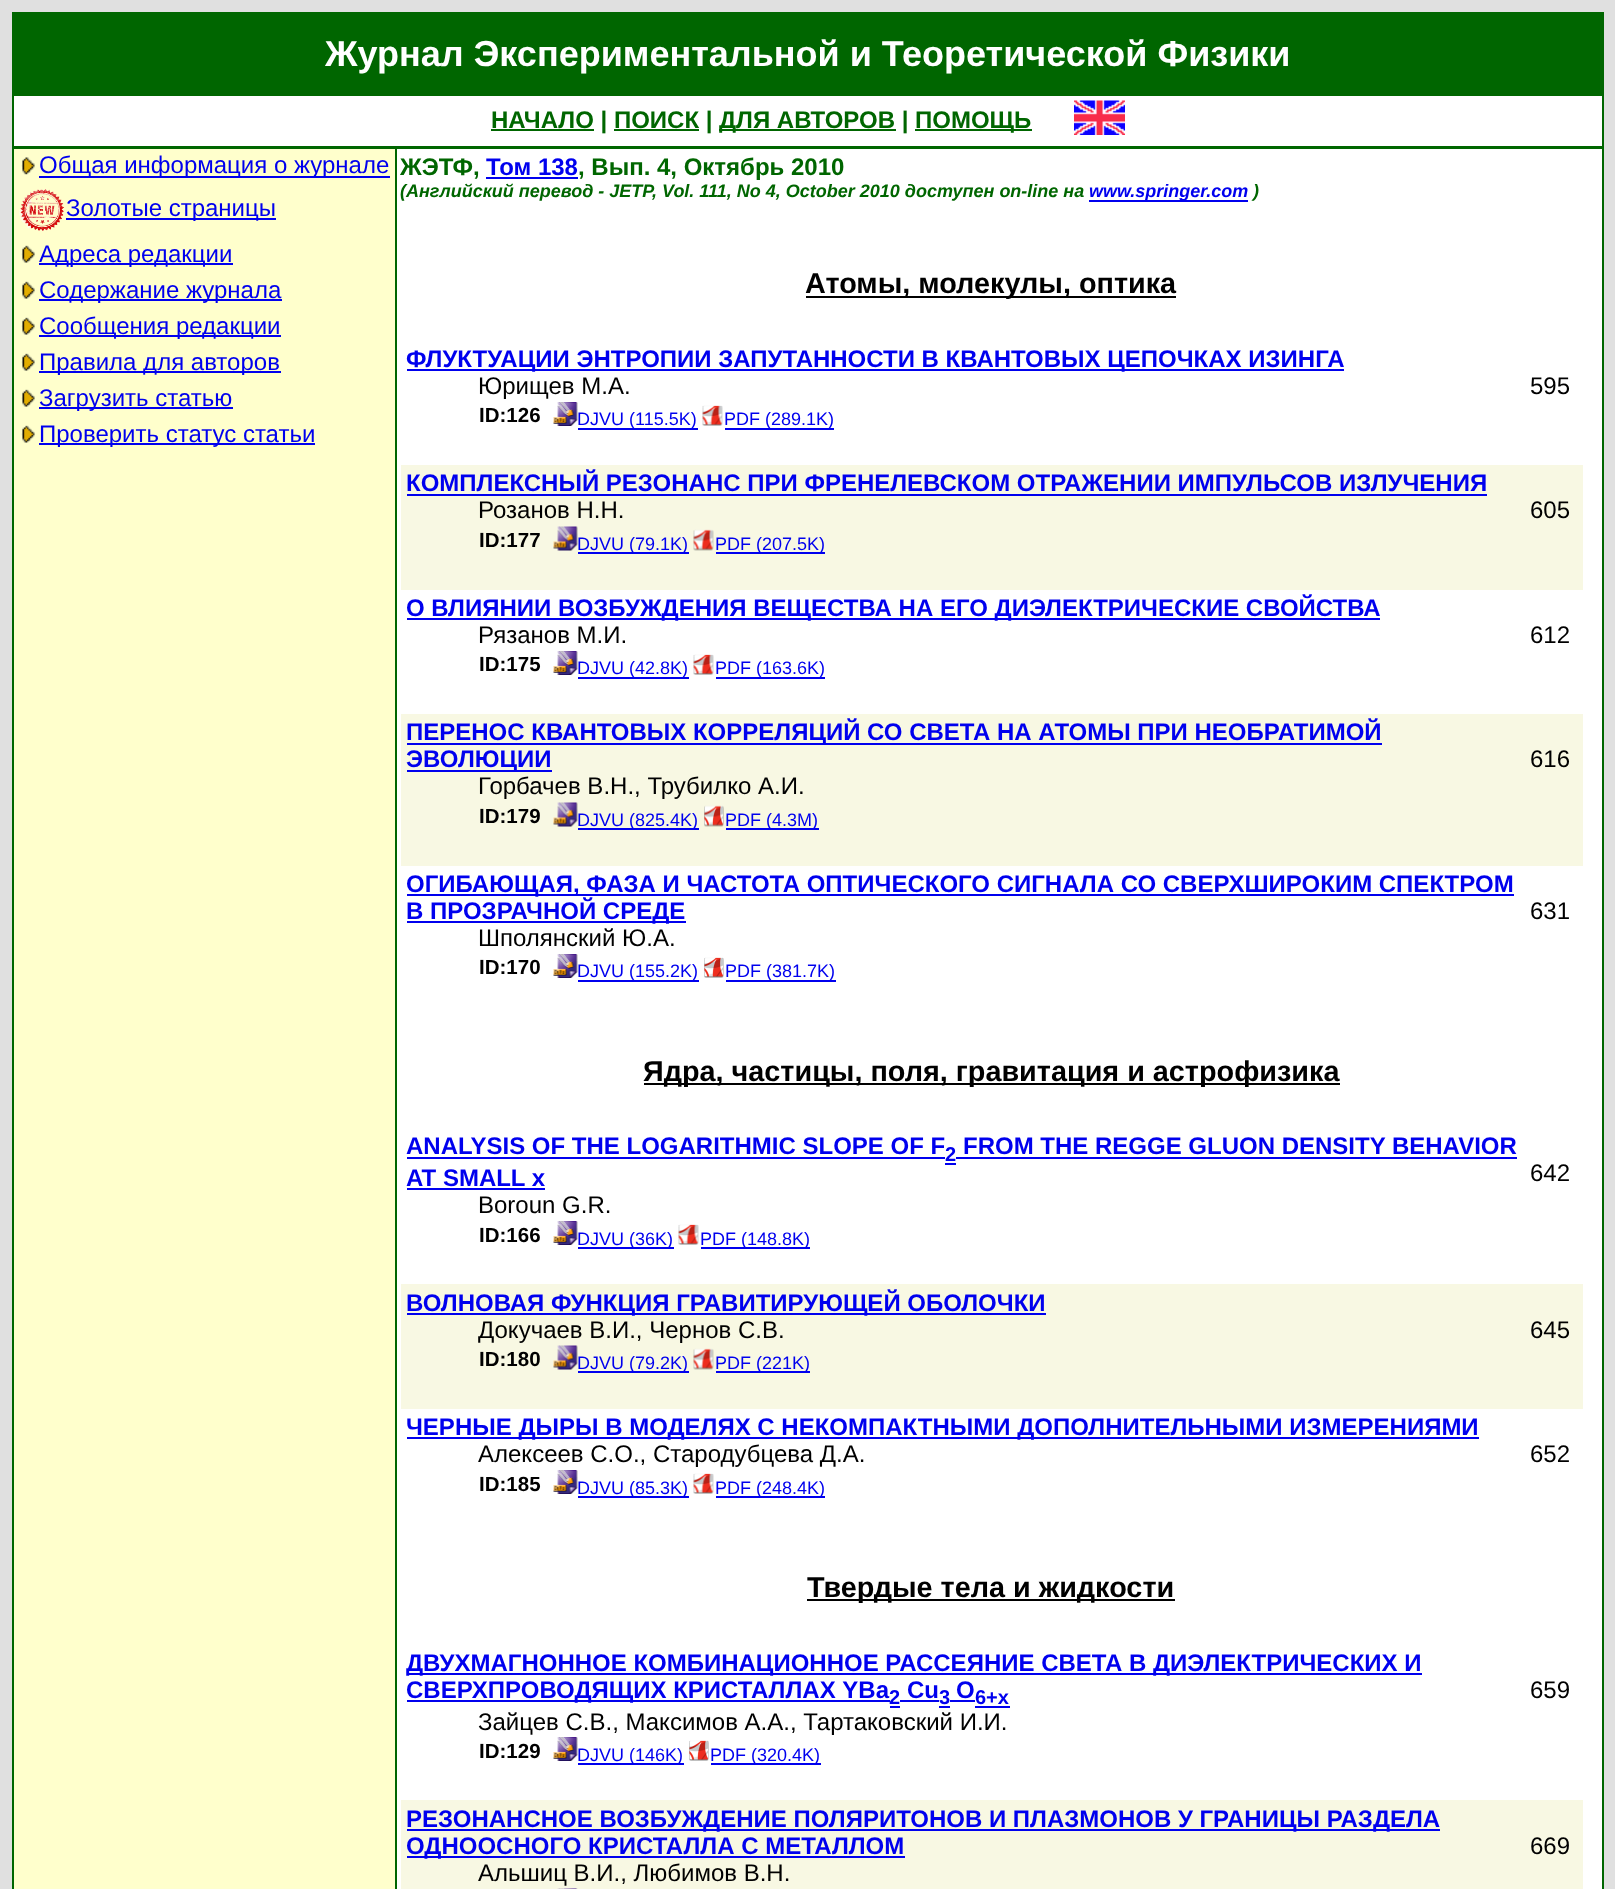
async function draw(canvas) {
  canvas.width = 1615;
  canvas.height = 1889;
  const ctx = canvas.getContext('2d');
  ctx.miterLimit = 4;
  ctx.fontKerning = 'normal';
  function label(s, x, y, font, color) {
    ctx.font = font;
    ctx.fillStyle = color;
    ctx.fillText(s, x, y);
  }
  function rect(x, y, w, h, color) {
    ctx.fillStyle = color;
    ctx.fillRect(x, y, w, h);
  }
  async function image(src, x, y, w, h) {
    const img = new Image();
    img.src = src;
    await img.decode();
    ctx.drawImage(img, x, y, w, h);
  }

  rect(0, 0, 1615, 1889, '#e0e0e0');
  rect(12, 12, 1592, 1877, '#060');
  rect(14, 96, 1588, 1793, '#fff');
  label('Журнал Экспериментальной и Теоретической Физики', 325, 66, 'bold 36px Liberation Sans', '#fff');
  rect(491, 129, 103, 2, '#060');
  label('НАЧАЛО | ПОИСК |', 491, 128, 'bold 24px Liberation Sans', '#060');
  rect(719, 129, 177, 2, '#060');
  label('ДЛЯ АВТОРОВ |', 719, 128, 'bold 24px Liberation Sans', '#060');
  rect(915, 129, 117, 2, '#060');
  label('ПОМОЩЬ', 915, 128, 'bold 24px Liberation Sans', '#060');
  rect(614, 129, 85, 2, '#060');
  await image('assets/img1.png', 1074, 100, 51, 35);
  rect(14, 146, 1588, 3, '#060');
  rect(14, 149, 381, 1740, '#ffc');
  await image('assets/img2.png', 21, 157, 14, 18);
  rect(39, 176, 351, 2, '#00e');
  label('Общая информация о журнале', 39, 173, '24px Liberation Sans', '#00e');
  await image('assets/img3.png', 19, 189, 45, 42);
  rect(66, 218, 210, 2, '#00e');
  label('Золотые страницы', 66, 216, '24px Liberation Sans', '#00e');
  await image('assets/img4.png', 21, 245, 14, 18);
  rect(39, 263, 194, 2, '#00e');
  label('Адреса редакции', 39, 262, '24px Liberation Sans', '#00e');
  await image('assets/img4.png', 21, 281, 14, 18);
  rect(39, 299, 243, 2, '#00e');
  label('Содержание журнала', 39, 298, '24px Liberation Sans', '#00e');
  await image('assets/img4.png', 21, 317, 14, 18);
  rect(39, 335, 242, 2, '#00e');
  label('Сообщения редакции', 39, 334, '24px Liberation Sans', '#00e');
  await image('assets/img4.png', 21, 353, 14, 18);
  rect(39, 371, 242, 2, '#00e');
  label('Правила для авторов', 39, 370, '24px Liberation Sans', '#00e');
  await image('assets/img4.png', 21, 389, 14, 18);
  rect(39, 407, 194, 2, '#00e');
  label('Загрузить статью', 39, 406, '24px Liberation Sans', '#00e');
  await image('assets/img4.png', 21, 425, 14, 18);
  rect(39, 443, 276, 2, '#00e');
  label('Проверить статус статьи', 39, 442, '24px Liberation Sans', '#00e');
  rect(395, 149, 2, 1740, '#060');
  label('ЖЭТФ,', 400, 175, 'bold 24px Liberation Sans', '#060');
  label('Том 138', 486, 175, 'bold 24px Liberation Sans', '#00e');
  label(', Вып. 4, Октябрь 2010', 578, 175, 'bold 24px Liberation Sans', '#060');
  rect(486, 177, 92, 2, '#00e');
  label('(Английский перевод - JETP, Vol. 111, No 4, October 2010 доступен on-line на', 400, 197, 'italic bold 18px Liberation Sans', '#060');
  rect(1089, 200, 159, 2, '#00e');
  label('www.springer.com', 1089, 197, 'italic bold 18px Liberation Sans', '#00e');
  label(')', 1253, 197, 'italic bold 18px Liberation Sans', '#060');
  rect(806, 296, 370, 2, '#000');
  label('Атомы, молекулы, оптика', 805, 293, 'bold 28.8px Liberation Sans', '#000');
  rect(407, 369, 937, 2, '#00e');
  label('ФЛУКТУАЦИИ ЭНТРОПИИ ЗАПУТАННОСТИ В КВАНТОВЫХ ЦЕПОЧКАХ ИЗИНГА', 406, 367, 'bold 24px Liberation Sans', '#00e');
  label('Юрищев М.А.', 478, 394, '24px Liberation Sans', '#000');
  label('ID:126', 479, 422, 'bold 20.5px Liberation Sans', '#000');
  await image('assets/img5.png', 553, 402, 25, 24);
  rect(578, 428, 120, 2, '#00e');
  label('DJVU (115.5K)', 577, 425, '18px Liberation Sans', '#00e');
  await image('assets/img6.png', 702, 405, 21, 21);
  rect(725, 428, 109, 2, '#00e');
  label('PDF (289.1K)', 724, 425, '18px Liberation Sans', '#00e');
  label('595', 1530, 394, '24px Liberation Sans', '#000');
  rect(401, 465, 1182, 125, '#f8f8e3');
  label('КОМПЛЕКСНЫЙ РЕЗОНАНС ПРИ ФРЕНЕЛЕВСКОМ ОТРАЖЕНИИ ИМПУЛЬСОВ ИЗЛУЧЕНИЯ', 406, 491, 'bold 24px Liberation Sans', '#00e');
  rect(407, 494, 1080, 2, '#00e');
  label('Розанов Н.Н.', 478, 518, '24px Liberation Sans', '#000');
  label('ID:177', 479, 547, 'bold 20.5px Liberation Sans', '#000');
  await image('assets/img7.png', 553, 526, 25, 25);
  rect(578, 552, 111, 2, '#00e');
  label('DJVU (79.1K)', 577, 550, '18px Liberation Sans', '#00e');
  await image('assets/img8.png', 693, 529, 21, 22);
  rect(716, 552, 109, 2, '#00e');
  label('PDF (207.5K)', 715, 550, '18px Liberation Sans', '#00e');
  label('605', 1530, 518, '24px Liberation Sans', '#000');
  rect(407, 618, 973, 2, '#00e');
  label('О ВЛИЯНИИ ВОЗБУЖДЕНИЯ ВЕЩЕСТВА НА ЕГО ДИЭЛЕКТРИЧЕСКИЕ СВОЙСТВА', 406, 616, 'bold 24px Liberation Sans', '#00e');
  label('Рязанов М.И.', 478, 643, '24px Liberation Sans', '#000');
  label('ID:175', 479, 671, 'bold 20.5px Liberation Sans', '#000');
  await image('assets/img5.png', 553, 651, 25, 24);
  rect(578, 677, 111, 2, '#00e');
  label('DJVU (42.8K)', 577, 674, '18px Liberation Sans', '#00e');
  await image('assets/img6.png', 693, 654, 21, 21);
  rect(716, 677, 109, 2, '#00e');
  label('PDF (163.6K)', 715, 674, '18px Liberation Sans', '#00e');
  label('612', 1530, 643, '24px Liberation Sans', '#000');
  rect(401, 714, 1182, 152, '#f8f8e3');
  rect(407, 743, 975, 2, '#00e');
  label('ПЕРЕНОС КВАНТОВЫХ КОРРЕЛЯЦИЙ СО СВЕТА НА АТОМЫ ПРИ НЕОБРАТИМОЙ', 406, 740, 'bold 24px Liberation Sans', '#00e');
  rect(407, 770, 145, 2, '#00e');
  label('ЭВОЛЮЦИИ', 406, 767, 'bold 24px Liberation Sans', '#00e');
  label('Горбачев В.Н., Трубилко А.И.', 478, 794, '24px Liberation Sans', '#000');
  label('ID:179', 479, 823, 'bold 20.5px Liberation Sans', '#000');
  await image('assets/img7.png', 553, 802, 25, 25);
  rect(578, 828, 121, 2, '#00e');
  label('DJVU (825.4K)', 577, 826, '18px Liberation Sans', '#00e');
  await image('assets/img9.png', 704, 805, 20, 22);
  rect(726, 828, 93, 2, '#00e');
  label('PDF (4.3M)', 725, 826, '18px Liberation Sans', '#00e');
  label('616', 1530, 767, '24px Liberation Sans', '#000');
  rect(407, 894, 1107, 2, '#00e');
  label('ОГИБАЮЩАЯ, ФАЗА И ЧАСТОТА ОПТИЧЕСКОГО СИГНАЛА СО СВЕРХШИРОКИМ СПЕКТРОМ', 406, 892, 'bold 24px Liberation Sans', '#00e');
  rect(407, 921, 279, 2, '#00e');
  label('В ПРОЗРАЧНОЙ СРЕДЕ', 406, 919, 'bold 24px Liberation Sans', '#00e');
  label('Шполянский Ю.А.', 478, 946, '24px Liberation Sans', '#000');
  label('ID:170', 479, 974, 'bold 20.5px Liberation Sans', '#000');
  await image('assets/img5.png', 553, 954, 25, 24);
  rect(578, 980, 121, 2, '#00e');
  label('DJVU (155.2K)', 577, 977, '18px Liberation Sans', '#00e');
  await image('assets/img10.png', 704, 957, 20, 21);
  rect(726, 980, 110, 2, '#00e');
  label('PDF (381.7K)', 725, 977, '18px Liberation Sans', '#00e');
  label('631', 1530, 919, '24px Liberation Sans', '#000');
  rect(644, 1083, 696, 2, '#000');
  label('Ядра, частицы, поля, гравитация и астрофизика', 643, 1081, 'bold 28.8px Liberation Sans', '#000');
  label('ANALYSIS OF THE LOGARITHMIC SLOPE OF F', 406, 1154, 'bold 24px Liberation Sans', '#00e');
  label('2', 945, 1161, 'bold 20px Liberation Sans', '#00e');
  rect(407, 1157, 538, 2, '#00e');
  rect(945, 1163, 11, 2, '#00e');
  rect(956, 1157, 561, 2, '#00e');
  label('FROM THE REGGE GLUON DENSITY BEHAVIOR', 963, 1154, 'bold 24px Liberation Sans', '#00e');
  label('AT SMALL x', 406, 1186, 'bold 24px Liberation Sans', '#00e');
  rect(407, 1188, 138, 2, '#00e');
  label('Boroun G.R.', 478, 1213, '24px Liberation Sans', '#000');
  label('ID:166', 479, 1242, 'bold 20.5px Liberation Sans', '#000');
  await image('assets/img5.png', 553, 1221, 25, 24);
  rect(578, 1247, 96, 2, '#00e');
  label('DJVU (36K)', 577, 1245, '18px Liberation Sans', '#00e');
  await image('assets/img6.png', 678, 1224, 21, 21);
  rect(701, 1247, 109, 2, '#00e');
  label('PDF (148.8K)', 700, 1245, '18px Liberation Sans', '#00e');
  label('642', 1530, 1181, '24px Liberation Sans', '#000');
  rect(401, 1284, 1182, 125, '#f8f8e3');
  rect(407, 1313, 639, 2, '#00e');
  label('ВОЛНОВАЯ ФУНКЦИЯ ГРАВИТИРУЮЩЕЙ ОБОЛОЧКИ', 406, 1311, 'bold 24px Liberation Sans', '#00e');
  label('Докучаев В.И., Чернов С.В.', 478, 1338, '24px Liberation Sans', '#000');
  label('ID:180', 479, 1366, 'bold 20.5px Liberation Sans', '#000');
  await image('assets/img7.png', 553, 1345, 25, 25);
  rect(578, 1371, 111, 2, '#00e');
  label('DJVU (79.2K)', 577, 1369, '18px Liberation Sans', '#00e');
  await image('assets/img8.png', 693, 1348, 21, 22);
  rect(716, 1371, 94, 2, '#00e');
  label('PDF (221K)', 715, 1369, '18px Liberation Sans', '#00e');
  label('645', 1530, 1338, '24px Liberation Sans', '#000');
  rect(407, 1437, 1072, 2, '#00e');
  label('ЧЕРНЫЕ ДЫРЫ В МОДЕЛЯХ С НЕКОМПАКТНЫМИ ДОПОЛНИТЕЛЬНЫМИ ИЗМЕРЕНИЯМИ', 406, 1435, 'bold 24px Liberation Sans', '#00e');
  label('Алексеев С.О., Стародубцева Д.А.', 478, 1462, '24px Liberation Sans', '#000');
  label('ID:185', 479, 1491, 'bold 20.5px Liberation Sans', '#000');
  await image('assets/img5.png', 553, 1470, 25, 24);
  rect(578, 1496, 111, 2, '#00e');
  label('DJVU (85.3K)', 577, 1494, '18px Liberation Sans', '#00e');
  await image('assets/img6.png', 693, 1473, 21, 21);
  rect(716, 1496, 109, 2, '#00e');
  label('PDF (248.4K)', 715, 1494, '18px Liberation Sans', '#00e');
  label('652', 1530, 1462, '24px Liberation Sans', '#000');
  rect(807, 1599, 368, 2, '#000');
  label('Твердые тела и жидкости', 807, 1597, 'bold 28.8px Liberation Sans', '#000');
  rect(407, 1673, 1015, 2, '#00e');
  label('ДВУХМАГНОННОЕ КОМБИНАЦИОННОЕ РАССЕЯНИЕ СВЕТА В ДИЭЛЕКТРИЧЕСКИХ И', 406, 1671, 'bold 24px Liberation Sans', '#00e');
  rect(407, 1700, 483, 2, '#00e');
  label('СВЕРХПРОВОДЯЩИХ КРИСТАЛЛАХ YBa', 406, 1698, 'bold 24px Liberation Sans', '#00e');
  label('2', 889, 1704, 'bold 20px Liberation Sans', '#00e');
  rect(890, 1706, 10, 2, '#00e');
  label('Cu', 907, 1698, 'bold 24px Liberation Sans', '#00e');
  label('3', 939, 1704, 'bold 20px Liberation Sans', '#00e');
  rect(900, 1700, 39, 2, '#00e');
  rect(939, 1706, 11, 2, '#00e');
  rect(950, 1700, 25, 2, '#00e');
  label('O', 956, 1698, 'bold 24px Liberation Sans', '#00e');
  label('6+x', 975, 1704, 'bold 20px Liberation Sans', '#00e');
  rect(975, 1706, 35, 2, '#00e');
  label('Зайцев С.В., Максимов А.А., Тартаковский И.И.', 478, 1730, '24px Liberation Sans', '#000');
  label('ID:129', 479, 1758, 'bold 20.5px Liberation Sans', '#000');
  await image('assets/img5.png', 553, 1737, 25, 24);
  rect(578, 1763, 106, 2, '#00e');
  label('DJVU (146K)', 577, 1761, '18px Liberation Sans', '#00e');
  await image('assets/img10.png', 689, 1740, 20, 21);
  rect(711, 1763, 110, 2, '#00e');
  label('PDF (320.4K)', 710, 1761, '18px Liberation Sans', '#00e');
  label('659', 1530, 1698, '24px Liberation Sans', '#000');
  rect(401, 1800, 1182, 89, '#f8f8e3');
  rect(407, 1829, 1033, 2, '#00e');
  label('РЕЗОНАНСНОЕ ВОЗБУЖДЕНИЕ ПОЛЯРИТОНОВ И ПЛАЗМОНОВ У ГРАНИЦЫ РАЗДЕЛА', 406, 1827, 'bold 24px Liberation Sans', '#00e');
  rect(407, 1856, 498, 2, '#00e');
  label('ОДНООСНОГО КРИСТАЛЛА С МЕТАЛЛОМ', 406, 1854, 'bold 24px Liberation Sans', '#00e');
  label('Альшиц В.И., Любимов В.Н.', 478, 1881, '24px Liberation Sans', '#000');
  await image('assets/img11.png', 557, 1888, 21, 1);
  label('669', 1530, 1854, '24px Liberation Sans', '#000');
}

draw(document.querySelector('canvas'));
